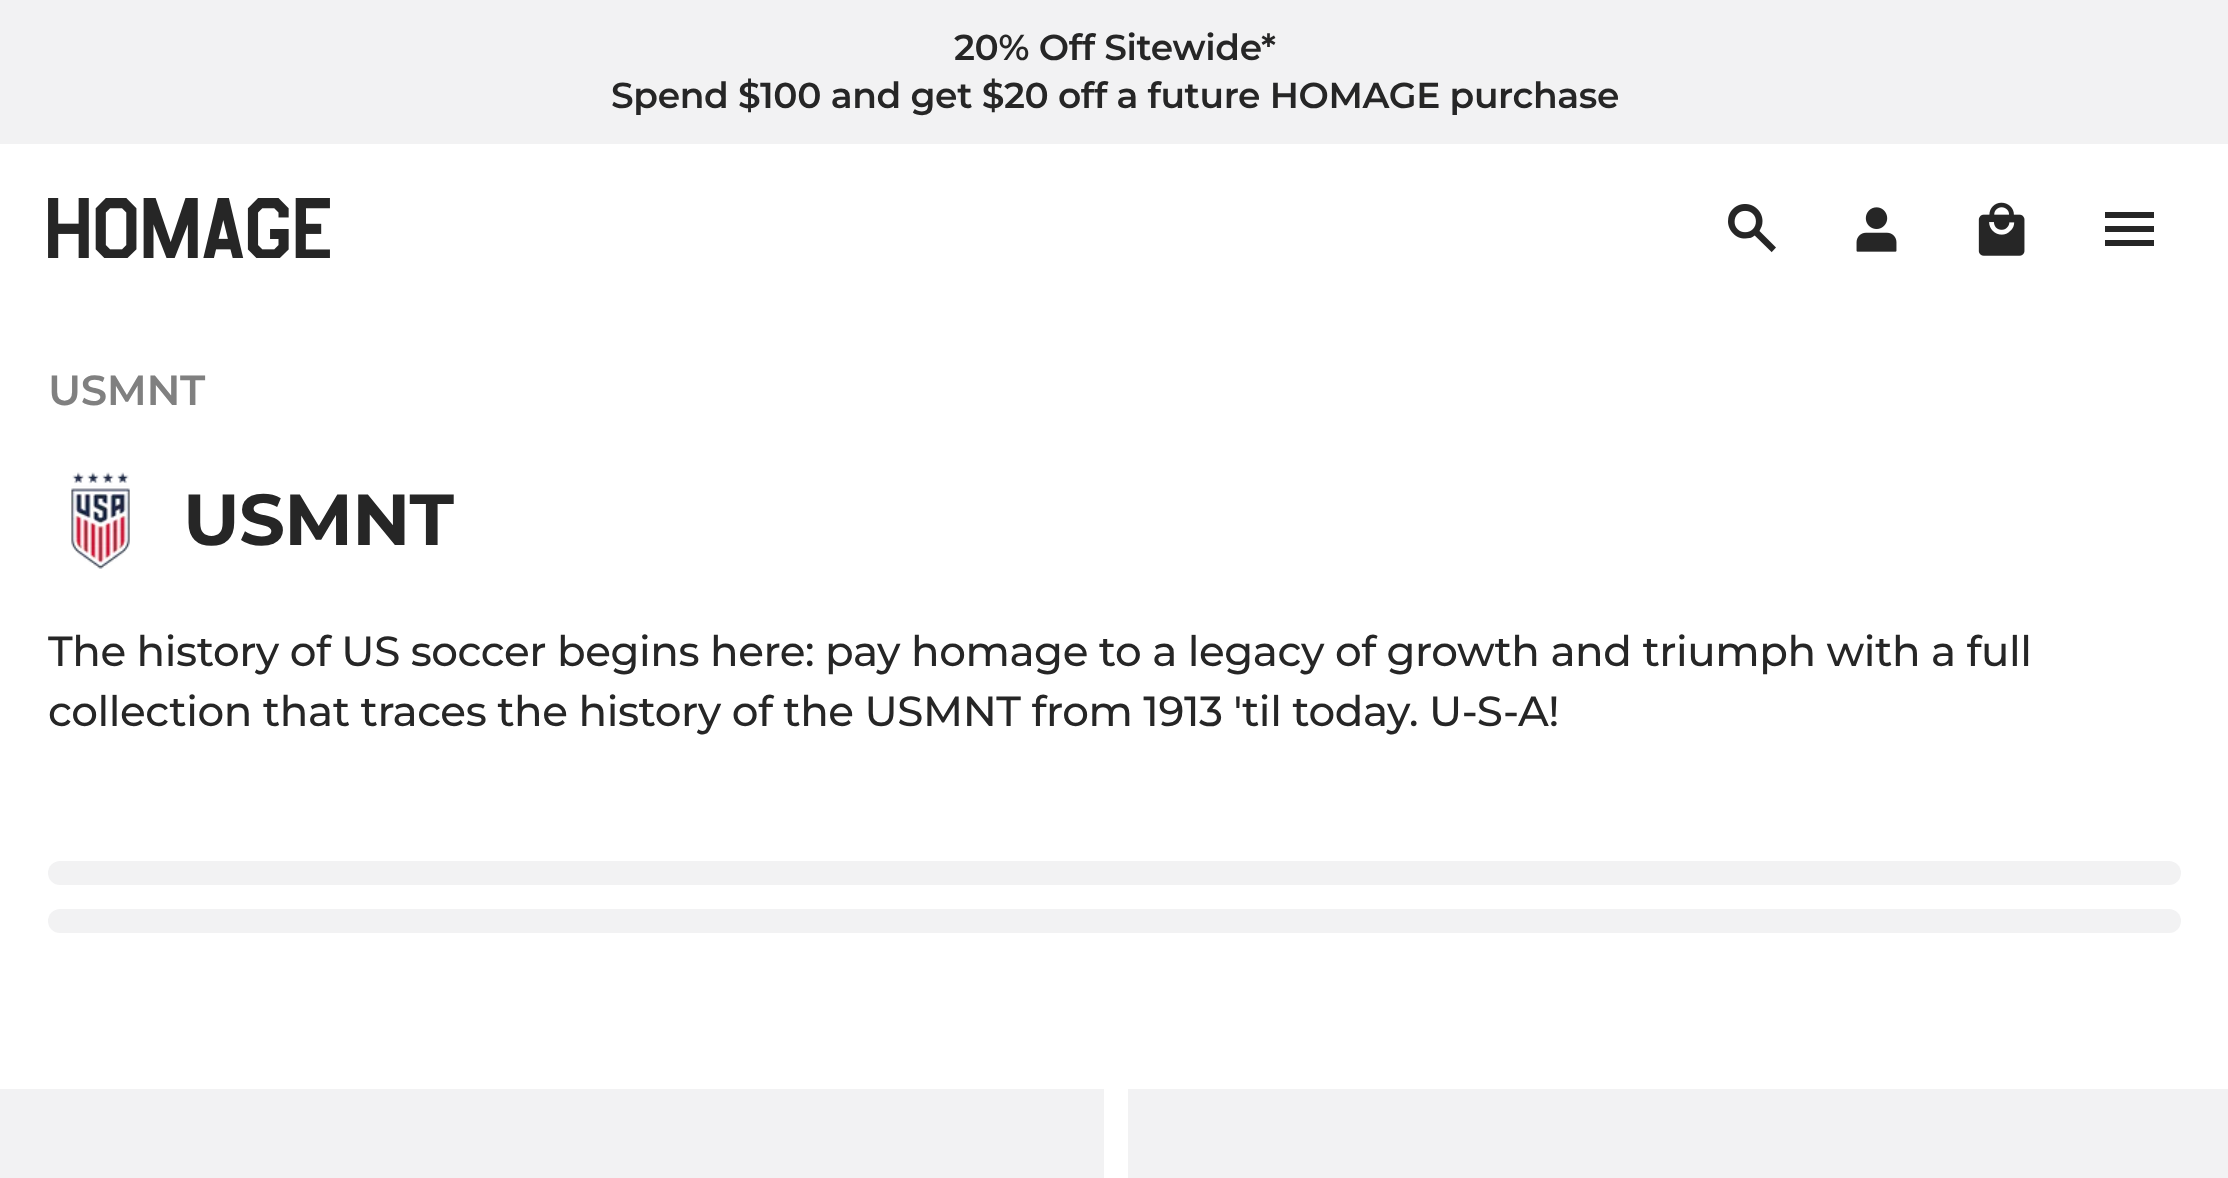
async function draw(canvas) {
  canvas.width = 2228;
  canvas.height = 1178;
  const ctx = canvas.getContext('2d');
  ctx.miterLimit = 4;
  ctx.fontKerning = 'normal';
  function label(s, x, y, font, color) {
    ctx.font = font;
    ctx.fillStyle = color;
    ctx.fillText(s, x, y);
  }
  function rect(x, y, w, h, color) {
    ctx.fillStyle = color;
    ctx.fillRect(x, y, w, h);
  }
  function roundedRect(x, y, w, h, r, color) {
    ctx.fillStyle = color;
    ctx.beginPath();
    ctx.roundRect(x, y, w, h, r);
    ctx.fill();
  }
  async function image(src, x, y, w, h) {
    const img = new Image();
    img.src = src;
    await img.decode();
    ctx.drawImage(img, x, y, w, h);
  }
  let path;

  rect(0, 0, 2228, 1178, '#fff');
  rect(0, 0, 2228, 144, '#f2f2f3');
  ctx.letterSpacing = '-0.35px';
  label('20% Off Sitewide*', 954, 60, '600 36px Montserrat', '#262626');
  label('Spend $100 and get $20 off a future HOMAGE purchase', 611, 108, '600 36px Montserrat', '#262626');
  await image('assets/img1.png', 48, 198, 282, 60);
  await image('assets/img2.png', 1728, 204, 48, 49);
  await image('assets/img3.png', 1856, 207, 41, 45);
  await image('assets/img4.png', 1978, 202, 47, 54);
  path = new Path2D('M2105 246V240H2154V246ZM2105 232V226H2154V232ZM2105 218V212H2154V218Z');
  ctx.fill(path);
  ctx.letterSpacing = '-0.42px';
  label('USMNT', 48, 405, '600 42px Montserrat', '#808080');
  await image('assets/img5.png', 71, 472, 59, 97);
  ctx.letterSpacing = '-0.75px';
  label('USMNT', 183, 545, '100 72px Montserrat', '#262626');
  ctx.letterSpacing = '-0.42px';
  label('The history of US soccer begins here: pay homage to a legacy of growth and triumph with a full', 48, 666, '500 42px Montserrat', '#262626');
  label('collection that traces the history of the USMNT from 1913 \'til today', 48, 726, '500 42px Montserrat', '#262626');
  label('. U-S-A!', 1409, 726, '500 42px Montserrat', '#262626');
  roundedRect(48, 861, 2133, 24, 12, '#f2f2f3');
  roundedRect(48, 909, 2133, 24, 12, '#f2f2f3');
  rect(0, 1089, 1104, 89, '#f2f2f3');
  rect(1128, 1089, 1100, 89, '#f2f2f3');
}

draw(document.querySelector('canvas'));
